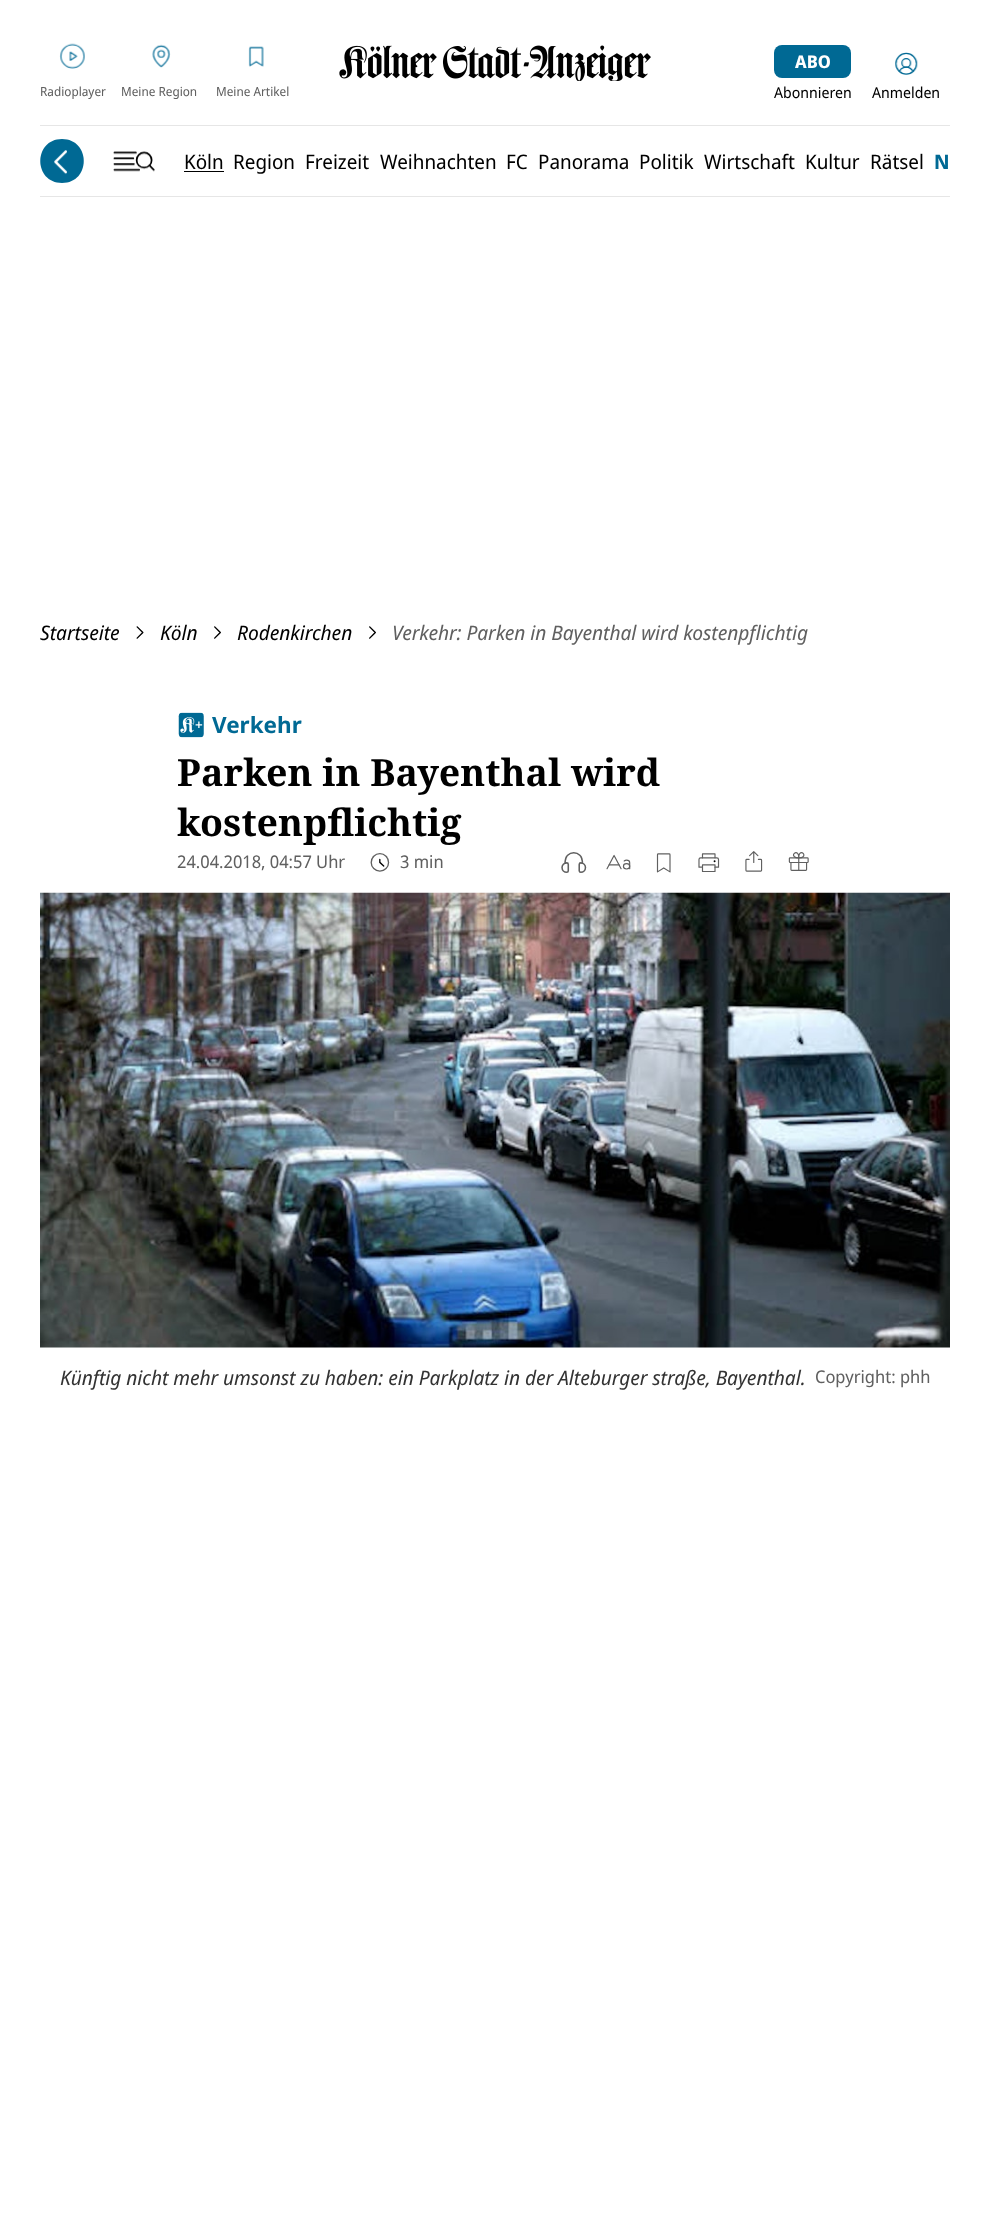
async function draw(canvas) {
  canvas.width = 989;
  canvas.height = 2214;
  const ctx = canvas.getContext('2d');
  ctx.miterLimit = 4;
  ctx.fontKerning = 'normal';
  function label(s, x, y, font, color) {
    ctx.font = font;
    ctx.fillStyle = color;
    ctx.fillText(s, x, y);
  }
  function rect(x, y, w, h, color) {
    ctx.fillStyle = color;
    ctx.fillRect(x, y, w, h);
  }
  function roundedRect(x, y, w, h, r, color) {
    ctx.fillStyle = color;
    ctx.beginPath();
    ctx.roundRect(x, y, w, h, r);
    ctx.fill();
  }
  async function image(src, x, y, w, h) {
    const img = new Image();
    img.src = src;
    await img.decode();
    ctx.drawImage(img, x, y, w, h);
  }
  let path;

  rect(0, 0, 989, 2214, '#fff');
  await image('assets/img1.png', 59, 43, 26, 26);
  label('Radioplayer', 40, 96, '12.5px Noto Sans Display', '#606060');
  await image('assets/img2.png', 152, 44, 19, 24);
  label('Meine Region', 121, 96, '12.5px Noto Sans Display', '#606060');
  await image('assets/img3.png', 248, 46, 16, 21);
  label('Meine Artikel', 216, 96, '12.5px Noto Sans Display', '#606060');
  await image('assets/img4.png', 339, 45, 312, 36);
  roundedRect(774, 45, 77, 33, 8, '#006994');
  label('ABO', 795, 68, 'bold 17.5px Noto Sans Display', '#fff');
  label('Abonnieren', 774, 98, '15px Noto Sans Display', '#000');
  await image('assets/img5.png', 895, 52, 23, 23);
  label('Anmelden', 872, 98, '15px Noto Sans Display', '#000');
  rect(40, 125, 910, 1, '#e6e6e6');
  rect(40, 196, 910, 1, '#e6e6e6');
  ctx.fillStyle = '#006994';
  path = new Path2D('M62 183C33 183 33 139 62 139C91 139 91 183 62 183Z');
  ctx.fill(path);
  await image('assets/img6.png', 54, 150, 13, 25);
  await image('assets/img7.png', 113, 151, 42, 21);
  label('Köln', 184, 169, '20px Noto Sans Display', '#000');
  rect(184, 171, 40, 1, '#000');
  label('Region', 233, 169, '20px Noto Sans Display', '#000');
  label('Freizeit', 305, 169, '20px Noto Sans Display', '#000');
  label('Weihnachten', 380, 169, '20px Noto Sans Display', '#000');
  label('FC', 506, 169, '20px Noto Sans Display', '#000');
  label('Panorama', 538, 169, '20px Noto Sans Display', '#000');
  label('Politik', 639, 169, '20px Noto Sans Display', '#000');
  label('Wirtschaft', 704, 169, '20px Noto Sans Display', '#000');
  label('Kultur', 805, 169, '20px Noto Sans Display', '#000');
  label('Rätsel', 870, 169, '20px Noto Sans Display', '#000');
  label('N', 934, 169, 'bold 20px Noto Sans Display', '#006994');
  label('Startseite', 40, 640, 'italic 20px Noto Sans Display', '#000');
  await image('assets/img8.png', 136, 626, 8, 13);
  label('Köln', 160, 640, 'italic 20px Noto Sans Display', '#000');
  await image('assets/img9.png', 214, 626, 7, 13);
  label('Rodenkirchen', 237, 640, 'italic 20px Noto Sans Display', '#000');
  await image('assets/img9.png', 369, 626, 7, 13);
  label('Verkehr: Parken in Bayenthal wird kostenpflichtig', 392, 640, 'italic 20px Noto Sans Display', '#606060');
  await image('assets/img10.png', 178, 712, 26, 26);
  label('Verkehr', 212, 733, 'bold 22.5px Noto Sans', '#006994');
  label('Parken in Bayenthal wird', 177, 786, 'bold 37.5px Noto Serif', '#000');
  label('kostenpflichtig', 177, 836, 'bold 37.5px Noto Serif', '#000');
  label('24.04.2018, 04:57 Uhr', 177, 868, '17.5px Noto Sans Display', '#606060');
  await image('assets/img11.png', 370, 853, 20, 19);
  label('3 min', 400, 868, '17.5px Noto Sans Display', '#606060');
  await image('assets/img12.png', 561, 852, 26, 21);
  await image('assets/img13.png', 606, 854, 25, 16);
  await image('assets/img14.png', 656, 853, 15, 20);
  await image('assets/img15.png', 698, 853, 22, 19);
  await image('assets/img16.png', 745, 851, 18, 21);
  await image('assets/img17.png', 788, 852, 21, 19);
  await image('assets/img18.png', 40, 892, 910, 456);
  label('Künftig nicht mehr umsonst zu haben: ein Parkplatz in der Alteburger straße, Bayenthal.', 60, 1385, 'italic 20px Noto Sans Display', '#333');
  label('Copyright: phh', 815, 1383, '17.5px Noto Sans Display', '#606060');
}

draw(document.querySelector('canvas'));
